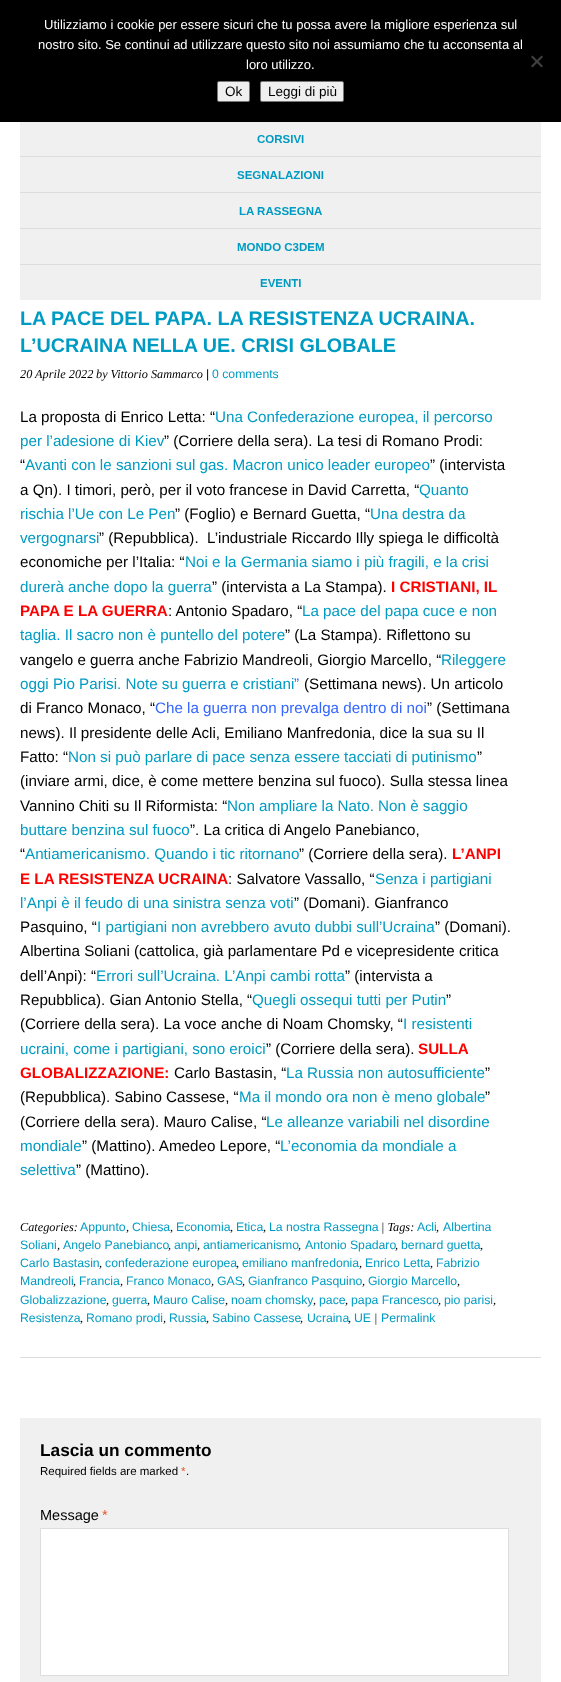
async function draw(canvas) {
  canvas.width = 561;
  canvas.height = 1682;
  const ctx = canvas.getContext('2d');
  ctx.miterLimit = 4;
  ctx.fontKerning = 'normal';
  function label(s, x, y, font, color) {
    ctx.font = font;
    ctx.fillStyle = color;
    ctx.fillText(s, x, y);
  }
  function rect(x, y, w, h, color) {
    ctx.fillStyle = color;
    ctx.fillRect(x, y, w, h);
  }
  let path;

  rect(0, 0, 561, 1682, '#fff');
  rect(0, 0, 561, 122, '#000');
  label('Utilizziamo i cookie per essere sicuri che tu possa avere la migliore esperienza sul', 44, 29, '13px Liberation Sans', '#fff');
  label('nostro sito. Se continui ad utilizzare questo sito noi assumiamo che tu acconsenta al', 38, 49, '13px Liberation Sans', '#fff');
  label('loro utilizzo.', 246, 69, '13px Liberation Sans', '#fff');
  ctx.fillStyle = '#404040';
  path = new Path2D('M541.5 55.5L543 57L532.5 67.5L531 66Z');
  ctx.fill(path);
  path = new Path2D('M531 57L532.5 55.5L543 66L541.5 67.5Z');
  ctx.fill(path);
  ctx.fillStyle = '#efefef';
  ctx.beginPath();
  ctx.roundRect(217.5, 81.5, 32, 20, 1.5);
  ctx.fill();
  ctx.strokeStyle = '#767676';
  ctx.stroke();
  label('Ok', 225, 96, '13.5px Liberation Sans', '#000');
  ctx.fillStyle = '#efefef';
  ctx.beginPath();
  ctx.roundRect(260.5, 81.5, 83, 20, 1.5);
  ctx.fill();
  ctx.stroke();
  label('Leggi di più', 268, 96, '13.5px Liberation Sans', '#000');
  rect(20, 122, 521, 34, '#f0f0f0');
  rect(20, 156, 521, 1, '#ddd');
  label('CORSIVI', 257, 143, 'bold 11.5px Liberation Sans', '#009bc2');
  rect(20, 157, 521, 35, '#f0f0f0');
  rect(20, 192, 521, 1, '#ddd');
  label('SEGNALAZIONI', 237, 179, 'bold 11.5px Liberation Sans', '#009bc2');
  rect(20, 193, 521, 35, '#f0f0f0');
  rect(20, 228, 521, 1, '#ddd');
  label('LA RASSEGNA', 239, 215, 'bold 11.5px Liberation Sans', '#009bc2');
  rect(20, 229, 521, 35, '#f0f0f0');
  rect(20, 264, 521, 1, '#ddd');
  label('MONDO C3DEM', 237, 251, 'bold 11.5px Liberation Sans', '#009bc2');
  rect(20, 265, 521, 35, '#f0f0f0');
  label('EVENTI', 260, 287, 'bold 11.5px Liberation Sans', '#009bc2');
  rect(20, 1357, 521, 1, '#ddd');
  label('LA PACE DEL PAPA. LA RESISTENZA UCRAINA.', 20, 325, 'bold 19.75px Liberation Sans', '#009bc2');
  label('L’UCRAINA NELLA UE. CRISI GLOBALE', 20, 352, 'bold 19.75px Liberation Sans', '#009bc2');
  label('20 Aprile 2022', 20, 378, 'italic 12.25px Liberation Serif', '#000');
  label('by Vittorio Sammarco', 96, 378, 'italic 12.25px Liberation Serif', '#000');
  label('|', 206, 378, '12.25px Liberation Sans', '#000');
  label('0 comments', 212, 378, '12.25px Liberation Sans', '#009bc2');
  label('La proposta di Enrico Letta: “', 20, 422, '15.2px Liberation Sans', '#000');
  label('Una Confederazione europea, il percorso', 215, 422, '15.2px Liberation Sans', '#009bc2');
  label('per l’adesione di Kiev', 20, 446, '15.2px Liberation Sans', '#009bc2');
  label('” (Corriere della sera). La tesi di Romano Prodi:', 164, 446, '15.2px Liberation Sans', '#000');
  label('“', 20, 470, '15.2px Liberation Sans', '#000');
  label('Avanti con le sanzioni sul gas. Macron unico leader europeo', 25, 470, '15.2px Liberation Sans', '#009bc2');
  label('” (intervista', 430, 470, '15.2px Liberation Sans', '#000');
  label('a Qn). I timori, però, per il voto francese in David Carretta, “', 20, 495, '15.2px Liberation Sans', '#000');
  label('Quanto', 419, 495, '15.2px Liberation Sans', '#009bc2');
  label('rischia l’Ue con Le Pen', 20, 519, '15.2px Liberation Sans', '#009bc2');
  label('” (Foglio) e Bernard Guetta, “', 175, 519, '15.2px Liberation Sans', '#000');
  label('Una destra da', 370, 519, '15.2px Liberation Sans', '#009bc2');
  label('vergognarsi', 20, 543, '15.2px Liberation Sans', '#009bc2');
  label('” (Repubblica).  L’industriale Riccardo Illy spiega le difficoltà', 99, 543, '15.2px Liberation Sans', '#000');
  label('economiche per l’Italia: “', 20, 567, '15.2px Liberation Sans', '#000');
  label('Noi e la Germania siamo i più fragili, e la crisi', 185, 567, '15.2px Liberation Sans', '#009bc2');
  label('durerà anche dopo la guerra', 20, 592, '15.2px Liberation Sans', '#009bc2');
  label('” (intervista a La Stampa).', 212, 592, '15.2px Liberation Sans', '#000');
  label('I CRISTIANI, IL', 391, 592, 'bold 15.2px Liberation Sans', '#f00');
  label('PAPA E LA GUERRA', 20, 616, 'bold 15.2px Liberation Sans', '#f00');
  label(': Antonio Spadaro, “', 168, 616, '15.2px Liberation Sans', '#000');
  label('La pace del papa cuce e non', 302, 616, '15.2px Liberation Sans', '#009bc2');
  label('taglia. Il sacro non è puntello del potere', 20, 640, '15.2px Liberation Sans', '#009bc2');
  label('” (La Stampa). Riflettono su', 285, 640, '15.2px Liberation Sans', '#000');
  label('vangelo e guerra anche Fabrizio Mandreoli, Giorgio Marcello, “', 20, 665, '15.2px Liberation Sans', '#000');
  label('Rileggere', 441, 665, '15.2px Liberation Sans', '#009bc2');
  label('oggi Pio Parisi. Note su guerra e cristiani', 20, 689, '15.2px Liberation Sans', '#009bc2');
  label('”', 294, 689, '15.2px Liberation Sans', '#36f');
  label('(Settimana news). Un articolo', 304, 689, '15.2px Liberation Sans', '#000');
  label('di Franco Monaco, “', 20, 713, '15.2px Liberation Sans', '#000');
  label('Che la guerra non prevalga dentro di noi', 155, 713, '15.2px Liberation Sans', '#36f');
  label('” (Settimana', 427, 713, '15.2px Liberation Sans', '#000');
  label('news). Il presidente delle Acli, Emiliano Manfredonia, dice la sua su Il', 20, 738, '15.2px Liberation Sans', '#000');
  label('Fatto: “', 20, 762, '15.2px Liberation Sans', '#000');
  label('Non si può parlare di pace senza essere tacciati di putinismo', 68, 762, '15.2px Liberation Sans', '#009bc2');
  label('”', 477, 762, '15.2px Liberation Sans', '#000');
  label('(inviare armi, dice, è come mettere benzina sul fuoco). Sulla stessa linea', 20, 786, '15.2px Liberation Sans', '#000');
  label('Vannino Chiti su Il Riformista: “', 20, 811, '15.2px Liberation Sans', '#000');
  label('Non ampliare la Nato. Non è saggio', 227, 811, '15.2px Liberation Sans', '#009bc2');
  label('buttare benzina sul fuoco', 20, 835, '15.2px Liberation Sans', '#009bc2');
  label('”. La critica di Angelo Panebianco,', 190, 835, '15.2px Liberation Sans', '#000');
  label('“', 20, 859, '15.2px Liberation Sans', '#000');
  label('Antiamericanismo. Quando i tic ritornano', 25, 859, '15.2px Liberation Sans', '#009bc2');
  label('” (Corriere della sera).', 299, 859, '15.2px Liberation Sans', '#000');
  label('L’ANPI', 452, 859, 'bold 15.2px Liberation Sans', '#f00');
  label('E LA RESISTENZA UCRAINA', 20, 884, 'bold 15.2px Liberation Sans', '#f00');
  label(': Salvatore Vassallo, “', 228, 884, '15.2px Liberation Sans', '#000');
  label('Senza i partigiani', 375, 884, '15.2px Liberation Sans', '#009bc2');
  label('l’Anpi è il feudo di una sinistra senza voti', 20, 908, '15.2px Liberation Sans', '#009bc2');
  label('” (Domani). Gianfranco', 294, 908, '15.2px Liberation Sans', '#000');
  label('Pasquino, “', 20, 932, '15.2px Liberation Sans', '#000');
  label('I partigiani non avrebbero avuto dubbi sull’Ucraina', 97, 932, '15.2px Liberation Sans', '#009bc2');
  label('” (Domani).', 435, 932, '15.2px Liberation Sans', '#000');
  label('Albertina Soliani (cattolica, già parlamentare Pd e vicepresidente critica', 20, 956, '15.2px Liberation Sans', '#000');
  label('dell’Anpi): “', 20, 981, '15.2px Liberation Sans', '#000');
  label('Errori sull’Ucraina. L’Anpi cambi rotta', 96, 981, '15.2px Liberation Sans', '#009bc2');
  label('” (intervista a', 345, 981, '15.2px Liberation Sans', '#000');
  label('Repubblica). Gian Antonio Stella, “', 20, 1005, '15.2px Liberation Sans', '#000');
  label('Quegli ossequi tutti per Putin', 252, 1005, '15.2px Liberation Sans', '#009bc2');
  label('”', 446, 1005, '15.2px Liberation Sans', '#000');
  label('(Corriere della sera). La voce anche di Noam Chomsky, “', 20, 1029, '15.2px Liberation Sans', '#000');
  label('I resistenti', 403, 1029, '15.2px Liberation Sans', '#009bc2');
  label('ucraini, come i partigiani, sono eroici', 20, 1054, '15.2px Liberation Sans', '#009bc2');
  label('” (Corriere della sera).', 266, 1054, '15.2px Liberation Sans', '#000');
  label('SULLA', 418, 1054, 'bold 15.2px Liberation Sans', '#f00');
  label('GLOBALIZZAZIONE:', 20, 1078, 'bold 15.2px Liberation Sans', '#f00');
  label('Carlo Bastasin, “', 174, 1078, '15.2px Liberation Sans', '#000');
  label('La Russia non autosufficiente', 286, 1078, '15.2px Liberation Sans', '#009bc2');
  label('”', 485, 1078, '15.2px Liberation Sans', '#000');
  label('(Repubblica). Sabino Cassese, “', 20, 1102, '15.2px Liberation Sans', '#000');
  label('Ma il mondo ora non è meno globale', 239, 1102, '15.2px Liberation Sans', '#009bc2');
  label('”', 485, 1102, '15.2px Liberation Sans', '#000');
  label('(Corriere della sera). Mauro Calise, “', 20, 1127, '15.2px Liberation Sans', '#000');
  label('Le alleanze variabili nel disordine', 266, 1127, '15.2px Liberation Sans', '#009bc2');
  label('mondiale', 20, 1151, '15.2px Liberation Sans', '#009bc2');
  label('” (Mattino). Amedeo Lepore, “', 82, 1151, '15.2px Liberation Sans', '#000');
  label('L’economia da mondiale a', 280, 1151, '15.2px Liberation Sans', '#009bc2');
  label('selettiva', 20, 1175, '15.2px Liberation Sans', '#009bc2');
  label('” (Mattino).', 76, 1175, '15.2px Liberation Sans', '#000');
  label('Categories:', 20, 1231, 'italic 12.25px Liberation Serif', '#000');
  label('Appunto', 80, 1231, '12.25px Liberation Sans', '#009bc2');
  label(',', 126, 1231, 'italic 12.25px Liberation Serif', '#000');
  label('Chiesa', 132, 1231, '12.25px Liberation Sans', '#009bc2');
  label(',', 170, 1231, 'italic 12.25px Liberation Serif', '#000');
  label('Economia', 176, 1231, '12.25px Liberation Sans', '#009bc2');
  label(',', 230, 1231, 'italic 12.25px Liberation Serif', '#000');
  label('Etica', 236, 1231, '12.25px Liberation Sans', '#009bc2');
  label(',', 263, 1231, 'italic 12.25px Liberation Serif', '#000');
  label('La nostra Rassegna', 269, 1231, '12.25px Liberation Sans', '#009bc2');
  label('| Tags:', 381, 1231, 'italic 12.25px Liberation Serif', '#000');
  label('Acli', 417, 1231, '12.25px Liberation Sans', '#009bc2');
  label(',', 436, 1231, 'italic 12.25px Liberation Serif', '#000');
  label('Albertina', 443, 1231, '12.25px Liberation Sans', '#009bc2');
  label('Soliani', 20, 1249, '12.25px Liberation Sans', '#009bc2');
  label(',', 57, 1249, 'italic 12.25px Liberation Serif', '#000');
  label('Angelo Panebianco', 63, 1249, '12.25px Liberation Sans', '#009bc2');
  label(',', 168, 1249, 'italic 12.25px Liberation Serif', '#000');
  label('anpi', 174, 1249, '12.25px Liberation Sans', '#009bc2');
  label(',', 197, 1249, 'italic 12.25px Liberation Serif', '#000');
  label('antiamericanismo', 203, 1249, '12.25px Liberation Sans', '#009bc2');
  label(',', 298, 1249, 'italic 12.25px Liberation Serif', '#000');
  label('Antonio Spadaro', 305, 1249, '12.25px Liberation Sans', '#009bc2');
  label(',', 395, 1249, 'italic 12.25px Liberation Serif', '#000');
  label('bernard guetta', 401, 1249, '12.25px Liberation Sans', '#009bc2');
  label(',', 480, 1249, 'italic 12.25px Liberation Serif', '#000');
  label('Carlo Bastasin', 20, 1267, '12.25px Liberation Sans', '#009bc2');
  label(',', 99, 1267, 'italic 12.25px Liberation Serif', '#000');
  label('confederazione europea', 105, 1267, '12.25px Liberation Sans', '#009bc2');
  label(',', 236, 1267, 'italic 12.25px Liberation Serif', '#000');
  label('emiliano manfredonia', 242, 1267, '12.25px Liberation Sans', '#009bc2');
  label(',', 359, 1267, 'italic 12.25px Liberation Serif', '#000');
  label('Enrico Letta', 365, 1267, '12.25px Liberation Sans', '#009bc2');
  label(',', 430, 1267, 'italic 12.25px Liberation Serif', '#000');
  label('Fabrizio', 436, 1267, '12.25px Liberation Sans', '#009bc2');
  label('Mandreoli', 20, 1285, '12.25px Liberation Sans', '#009bc2');
  label(',', 73, 1285, 'italic 12.25px Liberation Serif', '#000');
  label('Francia', 79, 1285, '12.25px Liberation Sans', '#009bc2');
  label(',', 120, 1285, 'italic 12.25px Liberation Serif', '#000');
  label('Franco Monaco', 126, 1285, '12.25px Liberation Sans', '#009bc2');
  label(',', 211, 1285, 'italic 12.25px Liberation Serif', '#000');
  label('GAS', 217, 1285, '12.25px Liberation Sans', '#009bc2');
  label(',', 242, 1285, 'italic 12.25px Liberation Serif', '#000');
  label('Gianfranco Pasquino', 248, 1285, '12.25px Liberation Sans', '#009bc2');
  label(',', 362, 1285, 'italic 12.25px Liberation Serif', '#000');
  label('Giorgio Marcello', 368, 1285, '12.25px Liberation Sans', '#009bc2');
  label(',', 457, 1285, 'italic 12.25px Liberation Serif', '#000');
  label('Globalizzazione', 20, 1304, '12.25px Liberation Sans', '#009bc2');
  label(',', 106, 1304, 'italic 12.25px Liberation Serif', '#000');
  label('guerra', 112, 1304, '12.25px Liberation Sans', '#009bc2');
  label(',', 147, 1304, 'italic 12.25px Liberation Serif', '#000');
  label('Mauro Calise', 153, 1304, '12.25px Liberation Sans', '#009bc2');
  label(',', 225, 1304, 'italic 12.25px Liberation Serif', '#000');
  label('noam chomsky', 231, 1304, '12.25px Liberation Sans', '#009bc2');
  label(',', 313, 1304, 'italic 12.25px Liberation Serif', '#000');
  label('pace', 319, 1304, '12.25px Liberation Sans', '#009bc2');
  label(',', 345, 1304, 'italic 12.25px Liberation Serif', '#000');
  label('papa Francesco', 351, 1304, '12.25px Liberation Sans', '#009bc2');
  label(',', 438, 1304, 'italic 12.25px Liberation Serif', '#000');
  label('pio parisi', 444, 1304, '12.25px Liberation Sans', '#009bc2');
  label(',', 493, 1304, 'italic 12.25px Liberation Serif', '#000');
  label('Resistenza', 20, 1322, '12.25px Liberation Sans', '#009bc2');
  label(',', 80, 1322, 'italic 12.25px Liberation Serif', '#000');
  label('Romano prodi', 86, 1322, '12.25px Liberation Sans', '#009bc2');
  label(',', 163, 1322, 'italic 12.25px Liberation Serif', '#000');
  label('Russia', 169, 1322, '12.25px Liberation Sans', '#009bc2');
  label(',', 206, 1322, 'italic 12.25px Liberation Serif', '#000');
  label('Sabino Cassese', 212, 1322, '12.25px Liberation Sans', '#009bc2');
  label(',', 300, 1322, 'italic 12.25px Liberation Serif', '#000');
  label('Ucraina', 307, 1322, '12.25px Liberation Sans', '#009bc2');
  label(',', 348, 1322, 'italic 12.25px Liberation Serif', '#000');
  label('UE', 354, 1322, '12.25px Liberation Sans', '#009bc2');
  label('|', 374, 1322, 'italic 12.25px Liberation Serif', '#000');
  label('Permalink', 381, 1322, '12.25px Liberation Sans', '#009bc2');
  rect(20, 1418, 521, 264, '#f0f0f0');
  label('Lascia un commento', 40, 1456, 'bold 17.25px Liberation Sans', '#000');
  label('Required fields are marked', 40, 1475, '11.5px Liberation Sans', '#000');
  label('*', 181, 1475, '11.5px Liberation Sans', '#e75428');
  label('.', 186, 1475, '11.5px Liberation Sans', '#000');
  label('Message', 40, 1520, '14.5px Liberation Sans', '#000');
  label('*', 102, 1520, '14.5px Liberation Sans', '#e75428');
  ctx.fillStyle = '#fff';
  ctx.beginPath();
  ctx.rect(40.5, 1528.5, 468, 147);
  ctx.fill();
  ctx.strokeStyle = '#ddd';
  ctx.stroke();
}

draw(document.querySelector('canvas'));
